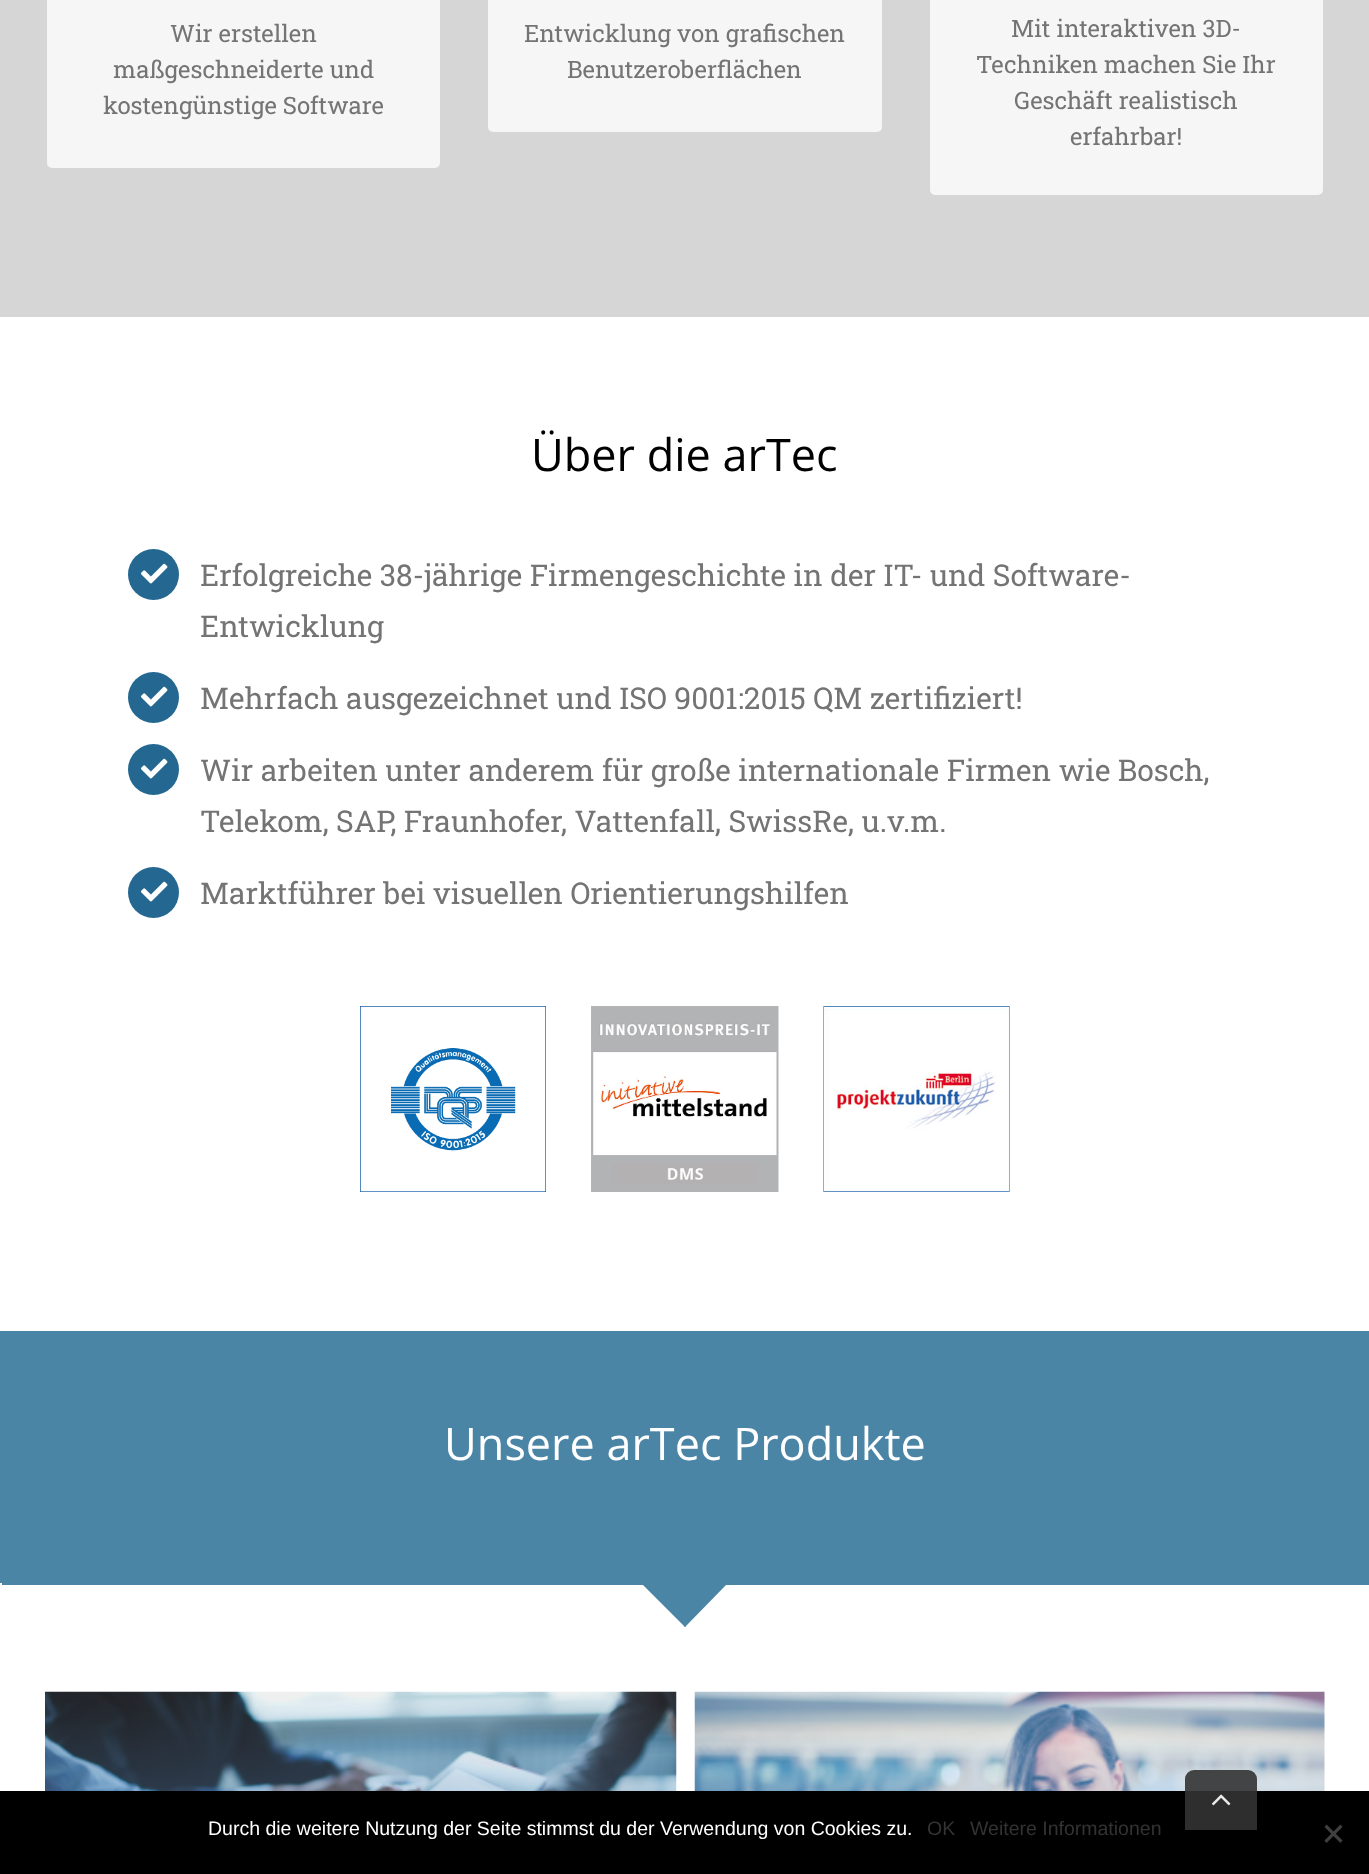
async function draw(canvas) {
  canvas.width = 1369;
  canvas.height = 1874;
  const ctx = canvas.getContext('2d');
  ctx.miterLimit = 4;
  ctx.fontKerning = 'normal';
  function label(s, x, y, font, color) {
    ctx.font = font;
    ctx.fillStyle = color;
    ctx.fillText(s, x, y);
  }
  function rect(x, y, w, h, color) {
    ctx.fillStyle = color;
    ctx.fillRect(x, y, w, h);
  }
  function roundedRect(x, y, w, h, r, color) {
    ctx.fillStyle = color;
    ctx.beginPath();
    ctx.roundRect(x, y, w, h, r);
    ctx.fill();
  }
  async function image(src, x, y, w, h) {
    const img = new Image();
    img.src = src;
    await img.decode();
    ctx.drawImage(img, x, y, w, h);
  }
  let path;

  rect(0, 0, 1369, 1874, '#fff');
  rect(0, 0, 1369, 317, '#d6d6d6');
  roundedRect(47, -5, 393, 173, 5, '#f6f6f6');
  label('Wir erstellen', 170, 42, '24px Roboto Slab', '#747474');
  label('maßgeschneiderte und', 113, 78, '24px Roboto Slab', '#747474');
  label('kostengünstige Software', 103, 114, '24px Roboto Slab', '#747474');
  roundedRect(488, -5, 394, 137, 5, '#f6f6f6');
  label('Entwicklung von grafischen', 524, 42, '24px Roboto Slab', '#747474');
  label('Benutzeroberflächen', 567, 78, '24px Roboto Slab', '#747474');
  roundedRect(930, -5, 393, 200, 5, '#f6f6f6');
  label('Mit interaktiven 3D-', 1011, 37, '24px Roboto Slab', '#747474');
  label('Techniken machen Sie Ihr', 976, 73, '24px Roboto Slab', '#747474');
  label('Geschäft realistisch', 1014, 109, '24px Roboto Slab', '#747474');
  label('erfahrbar!', 1070, 145, '24px Roboto Slab', '#747474');
  label('Über die arTec', 531, 471, '45px Open Sans', '#000');
  ctx.fillStyle = '#246892';
  ctx.beginPath();
  ctx.arc(153.5, 574.5, 25.5, 0, 2 * Math.PI);
  ctx.fill();
  await image('assets/img1.png', 141, 563, 27, 21);
  label('Erfolgreiche 38-jährige Firmengeschichte in der IT- und Software-', 200, 586, '30px Roboto Slab', '#747474');
  label('Entwicklung', 200, 637, '30px Roboto Slab', '#747474');
  ctx.fillStyle = '#246892';
  ctx.beginPath();
  ctx.arc(153.5, 697.5, 25.5, 0, 2 * Math.PI);
  ctx.fill();
  await image('assets/img1.png', 141, 686, 27, 21);
  label('Mehrfach ausgezeichnet und ISO 9001:2015 QM zertifiziert!', 200, 709, '30px Roboto Slab', '#747474');
  ctx.fillStyle = '#246892';
  ctx.beginPath();
  ctx.arc(153.5, 769.5, 25.5, 0, 2 * Math.PI);
  ctx.fill();
  await image('assets/img1.png', 141, 758, 27, 21);
  label('Wir arbeiten unter anderem für große internationale Firmen wie Bosch,', 200, 781, '30px Roboto Slab', '#747474');
  label('Telekom, SAP, Fraunhofer, Vattenfall, SwissRe, u.v.m.', 200, 832, '30px Roboto Slab', '#747474');
  ctx.fillStyle = '#246892';
  ctx.beginPath();
  ctx.arc(153.5, 892.5, 25.5, 0, 2 * Math.PI);
  ctx.fill();
  await image('assets/img1.png', 141, 881, 27, 21);
  label('Marktführer bei visuellen Orientierungshilfen', 200, 904, '30px Roboto Slab', '#747474');
  await image('assets/img2.png', 360, 1006, 186, 186);
  await image('assets/img3.png', 591, 1006, 188, 186);
  await image('assets/img4.png', 823, 1006, 187, 186);
  rect(0, 1331, 1369, 252, '#4b85a6');
  label('Unsere arTec Produkte', 444, 1460, '45px Open Sans', '#fff');
  rect(2, 1583, 1367, 2, '#4b85a6');
  path = new Path2D('M641 1582H728L685 1626Z');
  ctx.fill(path);
  path = new Path2D('M684 1626L726 1583L727 1584L685 1627Z');
  ctx.fill(path);
  path = new Path2D('M642 1584L643 1583L686 1626L685 1627Z');
  ctx.fill(path);
  await image('assets/img5.png', 45, 1691, 632, 100);
  await image('assets/img6.png', 694, 1691, 631, 100);
  rect(0, 1791, 1369, 83, '#000');
  label('Durch die weitere Nutzung der Seite stimmst du der Verwendung von Cookies zu.', 208, 1835, '19.5px Liberation Sans', '#fff');
  label('OK', 927, 1835, '19.5px Liberation Sans', '#333');
  label('Weitere Informationen', 970, 1835, '19.5px Liberation Sans', '#333');
  ctx.fillStyle = '#404040';
  path = new Path2D('M1340.5 1824.5L1342.5 1827L1326.5 1843L1324.5 1840.5Z');
  ctx.fill(path);
  path = new Path2D('M1324.5 1827L1326.5 1824.5L1342.5 1840.5L1340.5 1843Z');
  ctx.fill(path);
  ctx.fillStyle = '#333333e6';
  ctx.beginPath();
  ctx.roundRect(1185, 1770, 72, 60, [9, 9, 0, 0]);
  ctx.fill();
  await image('assets/img7.png', 1212, 1794, 19, 12);
}

draw(document.querySelector('canvas'));
